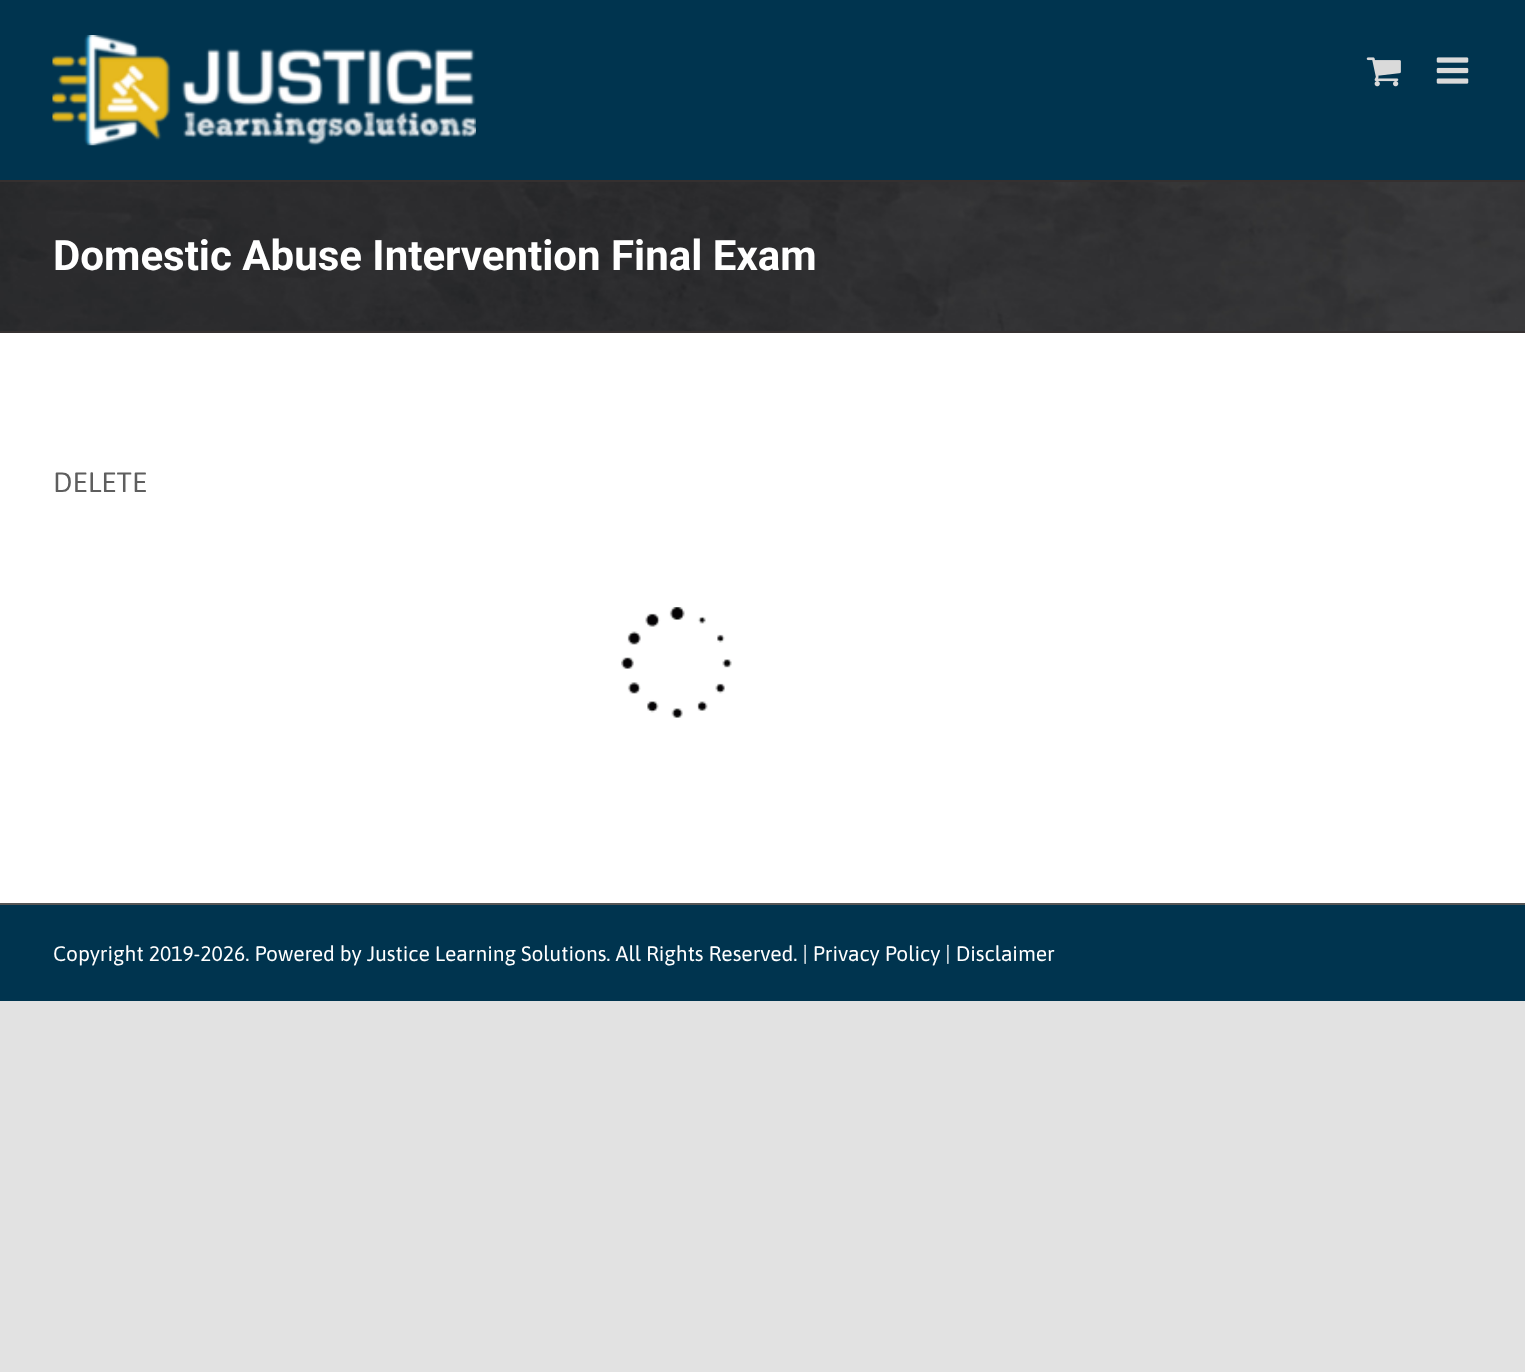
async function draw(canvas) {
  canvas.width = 1525;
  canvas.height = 1372;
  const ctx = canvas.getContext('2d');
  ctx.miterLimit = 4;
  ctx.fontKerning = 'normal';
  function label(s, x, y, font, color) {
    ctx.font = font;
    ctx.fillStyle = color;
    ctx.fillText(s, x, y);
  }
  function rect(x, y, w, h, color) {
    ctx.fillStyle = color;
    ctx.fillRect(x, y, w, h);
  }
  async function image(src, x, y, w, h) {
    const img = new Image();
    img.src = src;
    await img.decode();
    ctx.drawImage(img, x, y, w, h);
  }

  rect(0, 0, 1525, 1372, '#e2e2e2');
  rect(0, 333, 1525, 570, '#fff');
  rect(0, 0, 1525, 180, '#00344f');
  await image('assets/img1.png', 52, 35, 424, 111);
  await image('assets/img2.png', 1366, 57, 35, 30);
  await image('assets/img3.png', 1436, 57, 33, 27);
  await image('assets/img4.png', 0, 182, 1525, 149);
  rect(0, 180, 1525, 2, '#353030');
  rect(0, 331, 1525, 2, '#353030');
  label('Domestic Abuse Intervention Final Exam', 53, 270, 'bold 42px Roboto', '#fff');
  label('DELETE', 53, 492, '28px Asap', '#5e5e5e');
  await image('assets/img5.png', 621, 607, 111, 111);
  rect(0, 905, 1525, 96, '#00344f');
  rect(0, 903, 1525, 2, '#565656');
  label('Copyright 2019-2026. Powered by Justice Learning Solutions. All Rights Reserved. | Privacy Policy | Disclaimer', 53, 961, '21px Asap', '#fff');
}

draw(document.querySelector('canvas'));
